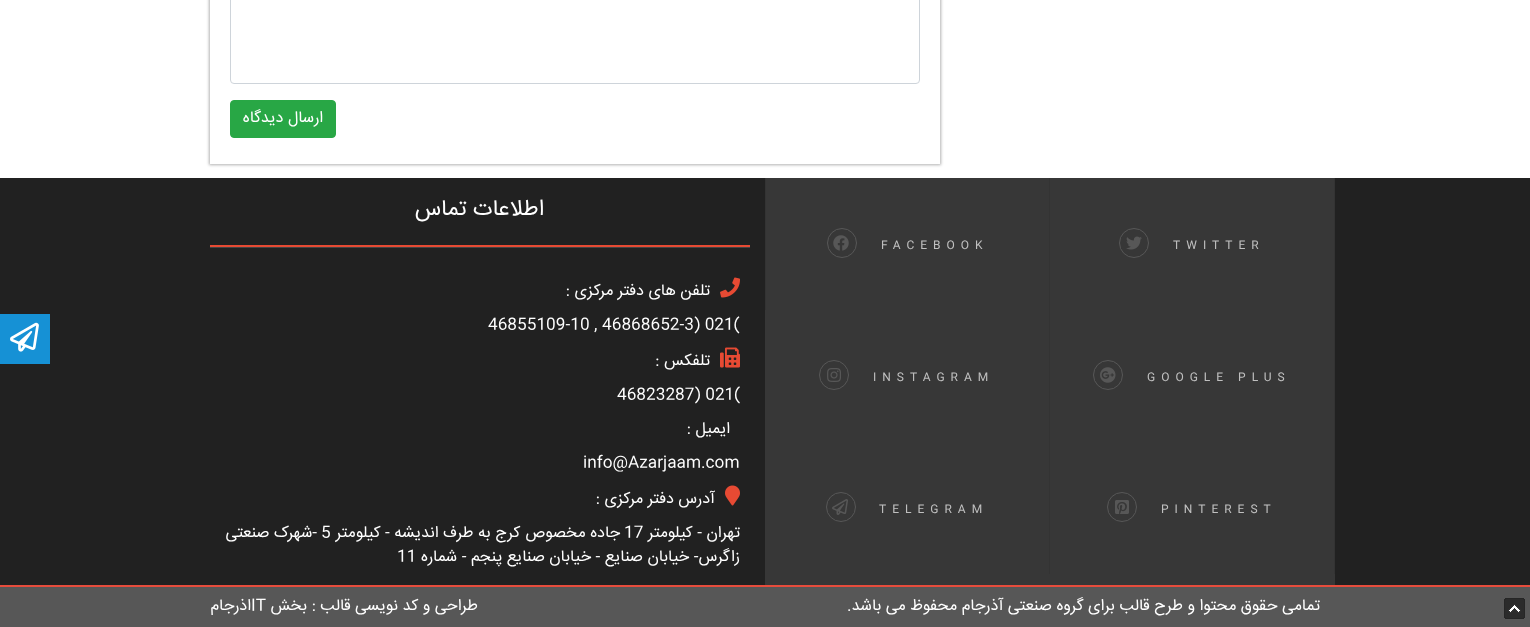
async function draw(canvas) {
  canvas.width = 1530;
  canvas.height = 627;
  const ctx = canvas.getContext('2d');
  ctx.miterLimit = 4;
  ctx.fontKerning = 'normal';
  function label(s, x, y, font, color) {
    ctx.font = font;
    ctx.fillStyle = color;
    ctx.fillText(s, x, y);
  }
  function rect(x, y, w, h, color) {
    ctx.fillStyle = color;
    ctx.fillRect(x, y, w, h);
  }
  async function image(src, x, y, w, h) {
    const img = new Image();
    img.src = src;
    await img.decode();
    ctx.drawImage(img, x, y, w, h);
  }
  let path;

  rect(0, 0, 1530, 627, '#fff');
  ctx.save();
  path = new Path2D('M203 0H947V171H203ZM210-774H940V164H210Z');
  ctx.clip(path, 'evenodd');
  ctx.fillStyle = '#0000004d';
  ctx.filter = 'blur(1.5px)';
  ctx.beginPath();
  ctx.rect(209, -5, 732, 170);
  ctx.fill();
  ctx.filter = 'none';
  ctx.restore();
  ctx.beginPath();
  ctx.roundRect(230.5, -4.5, 689, 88, 3.5);
  ctx.strokeStyle = '#ced4da';
  ctx.stroke();
  ctx.fillStyle = '#28a745';
  ctx.beginPath();
  ctx.roundRect(230.5, 100.5, 105, 37, 3.5);
  ctx.fill();
  ctx.strokeStyle = '#28a745';
  ctx.stroke();
  ctx.direction = 'rtl';
  label('ارسال دیدگاه', 323, 122, '16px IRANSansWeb', '#fff');
  rect(0, 178, 1530, 407, '#212121');
  rect(765, 178, 570, 407, '#373737');
  rect(1334, 178, 1, 396, '#333');
  ctx.letterSpacing = '6px';
  ctx.direction = 'ltr';
  label('TWITTER', 1173, 249, '12px Roboto', '#c0c0c0');
  ctx.beginPath();
  ctx.arc(1134, 243, 14.5, 0, 2 * Math.PI);
  ctx.strokeStyle = '#575757';
  ctx.stroke();
  await image('assets/img1.png', 1126, 236, 16, 14);
  rect(1049, 178, 1, 396, '#333');
  rect(765, 178, 1, 132, '#333');
  label('FACEBOOK', 881, 249, '12px Roboto', '#c0c0c0');
  ctx.beginPath();
  ctx.arc(842, 243, 14.5, 0, 2 * Math.PI);
  ctx.stroke();
  await image('assets/img2.png', 833, 235, 16, 16);
  label('GOOGLE PLUS', 1147, 381, '12px Roboto', '#c0c0c0');
  ctx.beginPath();
  ctx.arc(1108, 375, 14.5, 0, 2 * Math.PI);
  ctx.stroke();
  await image('assets/img3.png', 1100, 367, 16, 16);
  label('INSTAGRAM', 873, 381, '12px Roboto', '#c0c0c0');
  ctx.beginPath();
  ctx.arc(834, 375, 14.5, 0, 2 * Math.PI);
  ctx.stroke();
  await image('assets/img4.png', 827, 368, 14, 14);
  label('PINTEREST', 1161, 513, '12px Roboto', '#c0c0c0');
  ctx.beginPath();
  ctx.arc(1122, 507, 14.5, 0, 2 * Math.PI);
  ctx.stroke();
  await image('assets/img5.png', 1115, 500, 14, 14);
  label('TELEGRAM', 879, 513, '12px Roboto', '#c0c0c0');
  ctx.beginPath();
  ctx.arc(841, 507, 14.5, 0, 2 * Math.PI);
  ctx.stroke();
  await image('assets/img6.png', 832, 499, 16, 16);
  rect(210, 245, 540, 2, '#e74a33');
  ctx.letterSpacing = '0px';
  ctx.direction = 'rtl';
  label('اطلاعات تماس', 544, 215, '22.5px IRANSansWeb', '#fff');
  rect(210, 247, 540, 1, '#444');
  await image('assets/img7.png', 720, 277, 20, 21);
  label('تلفن های دفتر مرکزی :', 710, 295, '16px IRANSansWeb', '#fff');
  ctx.direction = 'ltr';
  label('46855109-10 , 46868652-3) 021(', 488, 329, '16px IRANSansWeb', '#fff');
  await image('assets/img8.png', 720, 347, 20, 21);
  ctx.direction = 'rtl';
  label('تلفکس :', 710, 365, '16px IRANSansWeb', '#fff');
  ctx.direction = 'ltr';
  label('46823287) 021(', 617, 399, '16px IRANSansWeb', '#fff');
  ctx.direction = 'rtl';
  label('ایمیل :', 730, 433, '16px IRANSansWeb', '#fff');
  ctx.direction = 'ltr';
  label('info@Azarjaam.com', 583, 467, '16px IRANSansWeb', '#fff');
  await image('assets/img9.png', 725, 485, 15, 21);
  ctx.direction = 'rtl';
  label('آدرس دفتر مرکزی :', 715, 503, '16px IRANSansWeb', '#fff');
  label('تهران - کیلومتر', 740, 537, '16px IRANSansWeb', '#fff');
  ctx.direction = 'ltr';
  label('17', 624, 537, '16px IRANSansWeb', '#fff');
  ctx.direction = 'rtl';
  label('جاده مخصوص کرج به طرف اندیشه - کیلومتر', 620, 537, '16px IRANSansWeb', '#fff');
  ctx.direction = 'ltr';
  label('5', 321, 537, '16px IRANSansWeb', '#fff');
  ctx.direction = 'rtl';
  label('-شهرک صنعتی', 317, 537, '16px IRANSansWeb', '#fff');
  label('زاگرس- خیابان صنایع - خیابان صنایع پنجم - شماره', 740, 561, '16px IRANSansWeb', '#fff');
  ctx.direction = 'ltr';
  label('11', 397, 561, '16px IRANSansWeb', '#fff');
  rect(0, 587, 1530, 40, '#575757');
  rect(0, 585, 1530, 2, '#e74c3c');
  ctx.direction = 'rtl';
  label('تمامی حقوق محتوا و طرح قالب برای گروه صنعتی آذرجام محفوظ می باشد.', 1320, 610, '16px IRANSansWeb', '#fff');
  label('طراحی و کد نویسی قالب : بخش', 478, 610, '16px IRANSansWeb', '#fff');
  ctx.direction = 'ltr';
  label('IT', 251, 610, '16px IRANSansWeb', '#fff');
  ctx.direction = 'rtl';
  label('اذرجام', 251, 610, '16px IRANSansWeb', '#fff');
  rect(0, 314, 50, 50, '#1691d5');
  await image('assets/img10.png', 10, 322, 29, 30);
  await image('assets/img11.png', 1504, 598, 21, 21);
}

draw(document.querySelector('canvas'));
